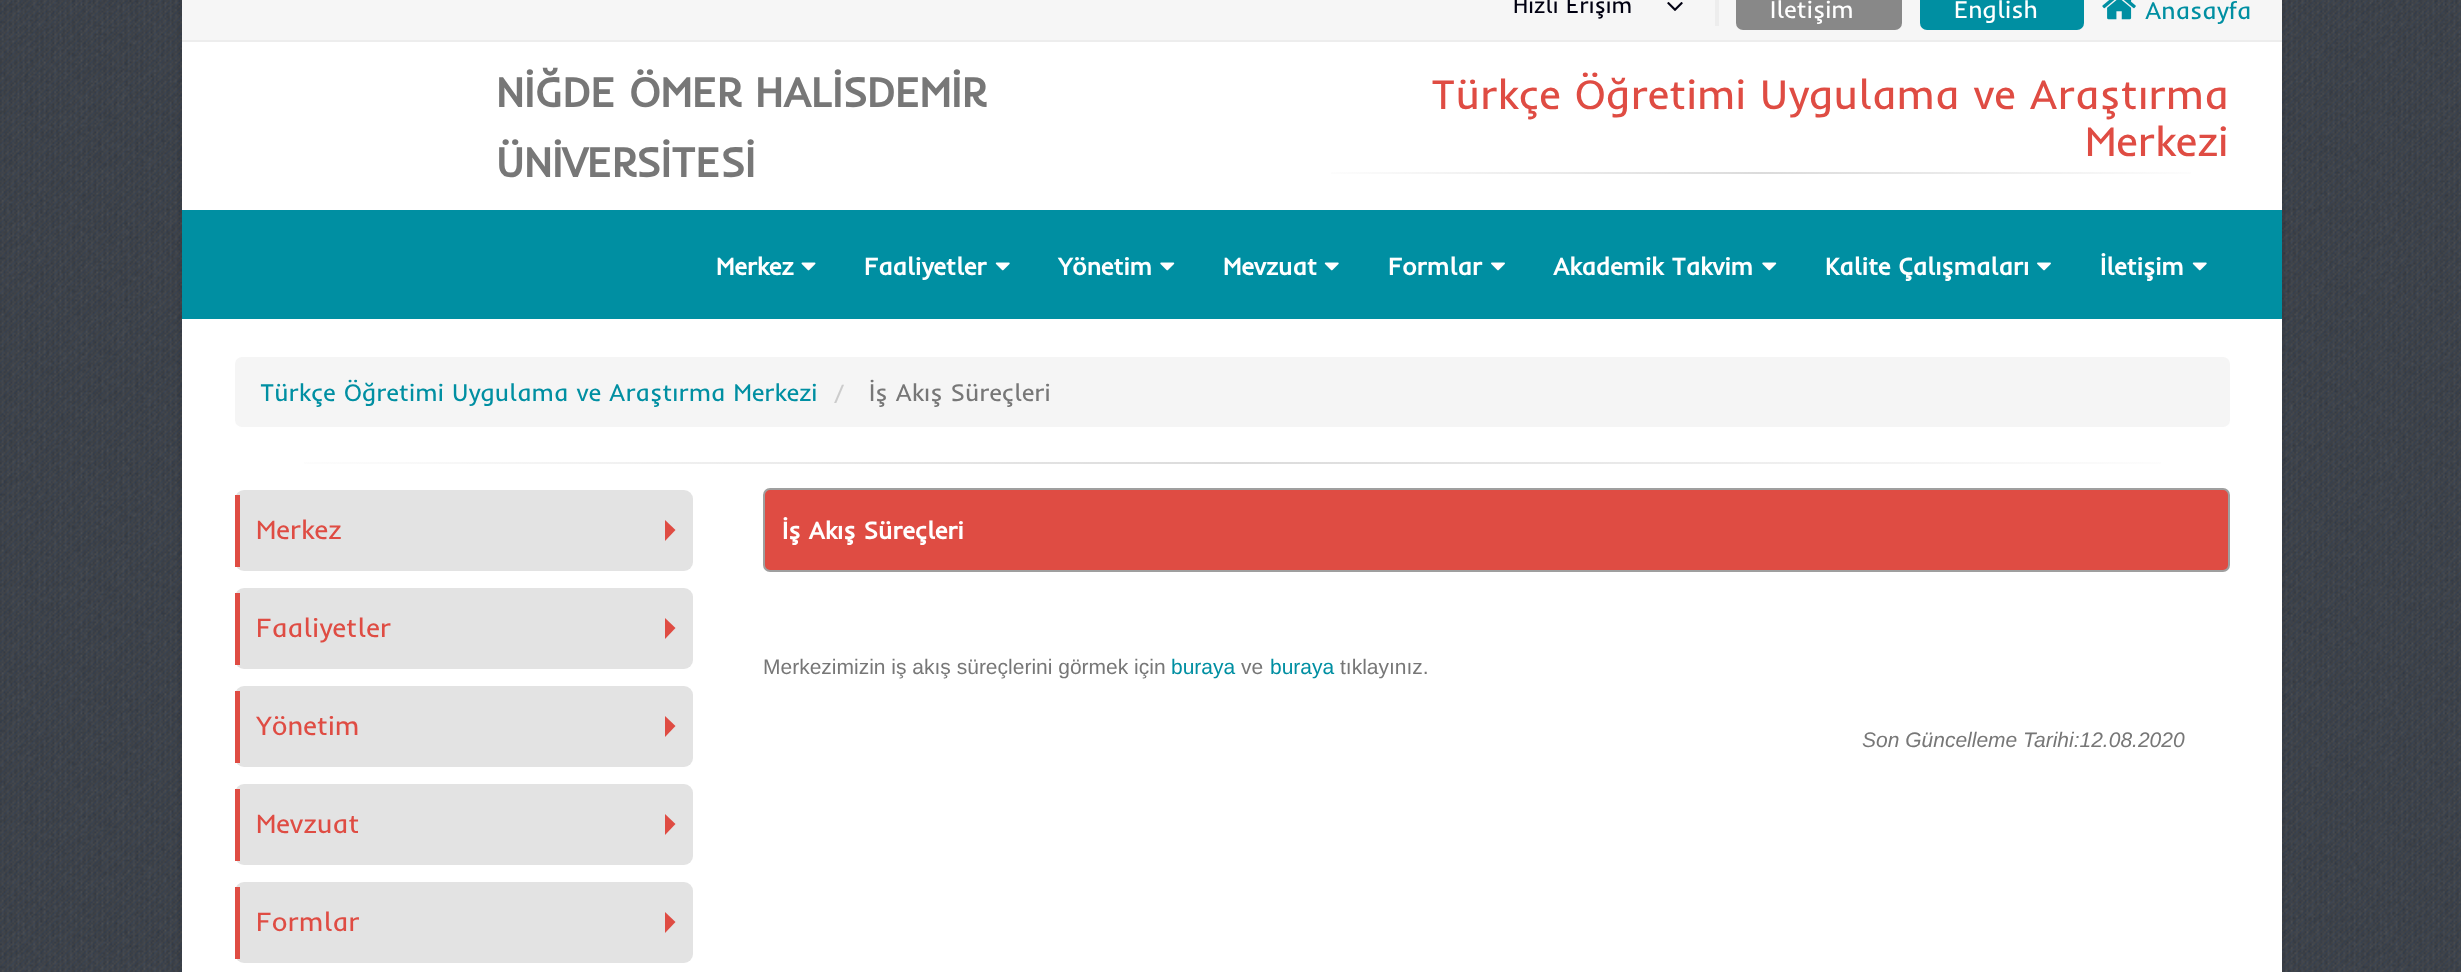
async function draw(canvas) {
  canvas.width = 2461;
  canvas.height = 972;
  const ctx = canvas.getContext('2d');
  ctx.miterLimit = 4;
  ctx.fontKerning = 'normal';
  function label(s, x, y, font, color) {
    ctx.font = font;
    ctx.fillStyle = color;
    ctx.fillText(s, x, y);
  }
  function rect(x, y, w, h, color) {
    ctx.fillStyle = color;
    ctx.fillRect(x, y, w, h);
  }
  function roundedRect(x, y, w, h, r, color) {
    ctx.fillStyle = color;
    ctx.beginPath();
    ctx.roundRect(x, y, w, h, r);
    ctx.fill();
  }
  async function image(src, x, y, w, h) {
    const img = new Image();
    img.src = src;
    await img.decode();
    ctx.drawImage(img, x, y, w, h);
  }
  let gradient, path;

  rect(0, 0, 2461, 972, '#fff');
  await image('assets/img1.png', 0, 0, 2461, 972);
  ctx.fillStyle = '#00000026';
  ctx.filter = 'blur(3.5px)';
  ctx.beginPath();
  ctx.roundRect(182, -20, 2100, 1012, 9);
  ctx.fill();
  ctx.filter = 'none';
  rect(182, 42, 2100, 930, '#fff');
  rect(182, 0, 2100, 40, '#f6f6f6');
  rect(182, 40, 2100, 2, '#ededed');
  rect(1715, 0, 4, 26, '#ededed');
  label('Hızlı Erişim', 1513, 13, '22.75px Inder', '#001');
  await image('assets/img2.png', 1667, 2, 16, 9);
  roundedRect(1736, -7, 166, 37, 7, '#888');
  label('İletişim', 1770, 18, '24.5px Inder', '#fff');
  roundedRect(1920, -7, 164, 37, 7, '#008fa2');
  label('English', 1954, 18, '24.5px Inder', '#fff');
  await image('assets/img3.png', 2102, 0, 34, 20);
  label('Anasayfa', 2145, 19, '24.5px Inder', '#008fa2');
  label('NİĞDE ÖMER HALİSDEMİR', 496, 107, 'bold 42px Inder', '#777');
  label('ÜNİVERSİTESİ', 496, 177, 'bold 42px Inder', '#777');
  label('Türkçe Öğretimi Uygulama ve Araştırma', 1431, 109, '42px Inder', '#df4c43');
  label('Merkezi', 2085, 156, '42px Inder', '#df4c43');
  gradient = ctx.createLinearGradient(1299, 172, 2223, 172);
  gradient.addColorStop(0, '#fff');
  gradient.addColorStop(0.5, '#dbdbdb');
  gradient.addColorStop(1, '#fff');
  ctx.fillStyle = gradient;
  ctx.fillRect(1331, 172, 860, 2);
  rect(182, 210, 2100, 109, '#008fa2');
  label('Merkez', 716, 275, 'bold 24.5px Inder', '#fff');
  await image('assets/img4.png', 801, 262, 15, 9);
  label('Faaliyetler', 864, 275, 'bold 24.5px Inder', '#fff');
  await image('assets/img5.png', 995, 262, 15, 9);
  label('Yönetim', 1058, 275, 'bold 24.5px Inder', '#fff');
  await image('assets/img6.png', 1160, 262, 15, 9);
  label('Mevzuat', 1223, 275, 'bold 24.5px Inder', '#fff');
  await image('assets/img5.png', 1324, 262, 15, 9);
  label('Formlar', 1388, 275, 'bold 24.5px Inder', '#fff');
  await image('assets/img7.png', 1491, 262, 14, 9);
  label('Akademik Takvim', 1553, 275, 'bold 24.5px Inder', '#fff');
  await image('assets/img6.png', 1762, 262, 15, 9);
  label('Kalite Çalışmaları', 1825, 275, 'bold 24.5px Inder', '#fff');
  await image('assets/img7.png', 2037, 262, 14, 9);
  label('İletişim', 2100, 275, 'bold 24.5px Inder', '#fff');
  await image('assets/img5.png', 2192, 262, 15, 9);
  roundedRect(235, 357, 1995, 70, 7, '#f5f5f5');
  label('Türkçe Öğretimi Uygulama ve Araştırma Merkezi', 260, 401, '24.5px Inder', '#008fa2');
  label('/', 834, 401, '24.5px Inder', '#ccc');
  label('İş Akış Süreçleri', 869, 401, '24.5px Inder', '#777');
  gradient = ctx.createLinearGradient(235, 463, 2230, 463);
  gradient.addColorStop(0, '#fff');
  gradient.addColorStop(0.5, '#dbdbdb');
  gradient.addColorStop(1, '#fff');
  ctx.fillStyle = gradient;
  ctx.fillRect(304, 462, 1857, 2);
  roundedRect(235, 490, 458, 81, 9, '#e3e3e3');
  rect(235, 495, 5, 72, '#df4c43');
  label('Merkez', 256, 539, '27px Inder', '#df4c43');
  path = new Path2D('M665 541V520L675.5 530Z');
  ctx.fill(path);
  roundedRect(235, 588, 458, 81, 9, '#e3e3e3');
  rect(235, 593, 5, 72, '#df4c43');
  label('Faaliyetler', 256, 637, '27px Inder', '#df4c43');
  path = new Path2D('M665 639V618L675.5 628Z');
  ctx.fill(path);
  roundedRect(235, 686, 458, 81, 9, '#e3e3e3');
  rect(235, 691, 5, 72, '#df4c43');
  label('Yönetim', 256, 735, '27px Inder', '#df4c43');
  path = new Path2D('M665 737V716L675.5 726Z');
  ctx.fill(path);
  roundedRect(235, 784, 458, 81, 9, '#e3e3e3');
  rect(235, 789, 5, 72, '#df4c43');
  label('Mevzuat', 256, 833, '27px Inder', '#df4c43');
  path = new Path2D('M665 835V814L675.5 824Z');
  ctx.fill(path);
  roundedRect(235, 882, 458, 81, 9, '#e3e3e3');
  rect(235, 887, 5, 72, '#df4c43');
  label('Formlar', 256, 931, '27px Inder', '#df4c43');
  path = new Path2D('M665 933V912L675.5 922Z');
  ctx.fill(path);
  ctx.beginPath();
  ctx.roundRect(764, 489, 1465, 82, 6);
  ctx.fill();
  ctx.strokeStyle = '#9f9f9f';
  ctx.lineWidth = 2;
  ctx.stroke();
  label('İş Akış Süreçleri', 782, 539, 'bold 24.5px Inder', '#fff');
  label('Merkezimizin iş akış süreçlerini görmek için', 763, 674, '21px Liberation Sans', '#777');
  label('buraya', 1171, 674, '21px Liberation Sans', '#008fa2');
  label('ve', 1241, 674, '21px Liberation Sans', '#777');
  label('buraya', 1270, 674, '21px Liberation Sans', '#008fa2');
  label('tıklayınız.', 1340, 674, '21px Liberation Sans', '#777');
  label('Son Güncelleme Tarihi:12.08.2020', 1862, 747, 'italic 21px Liberation Sans', '#777');
}

draw(document.querySelector('canvas'));
